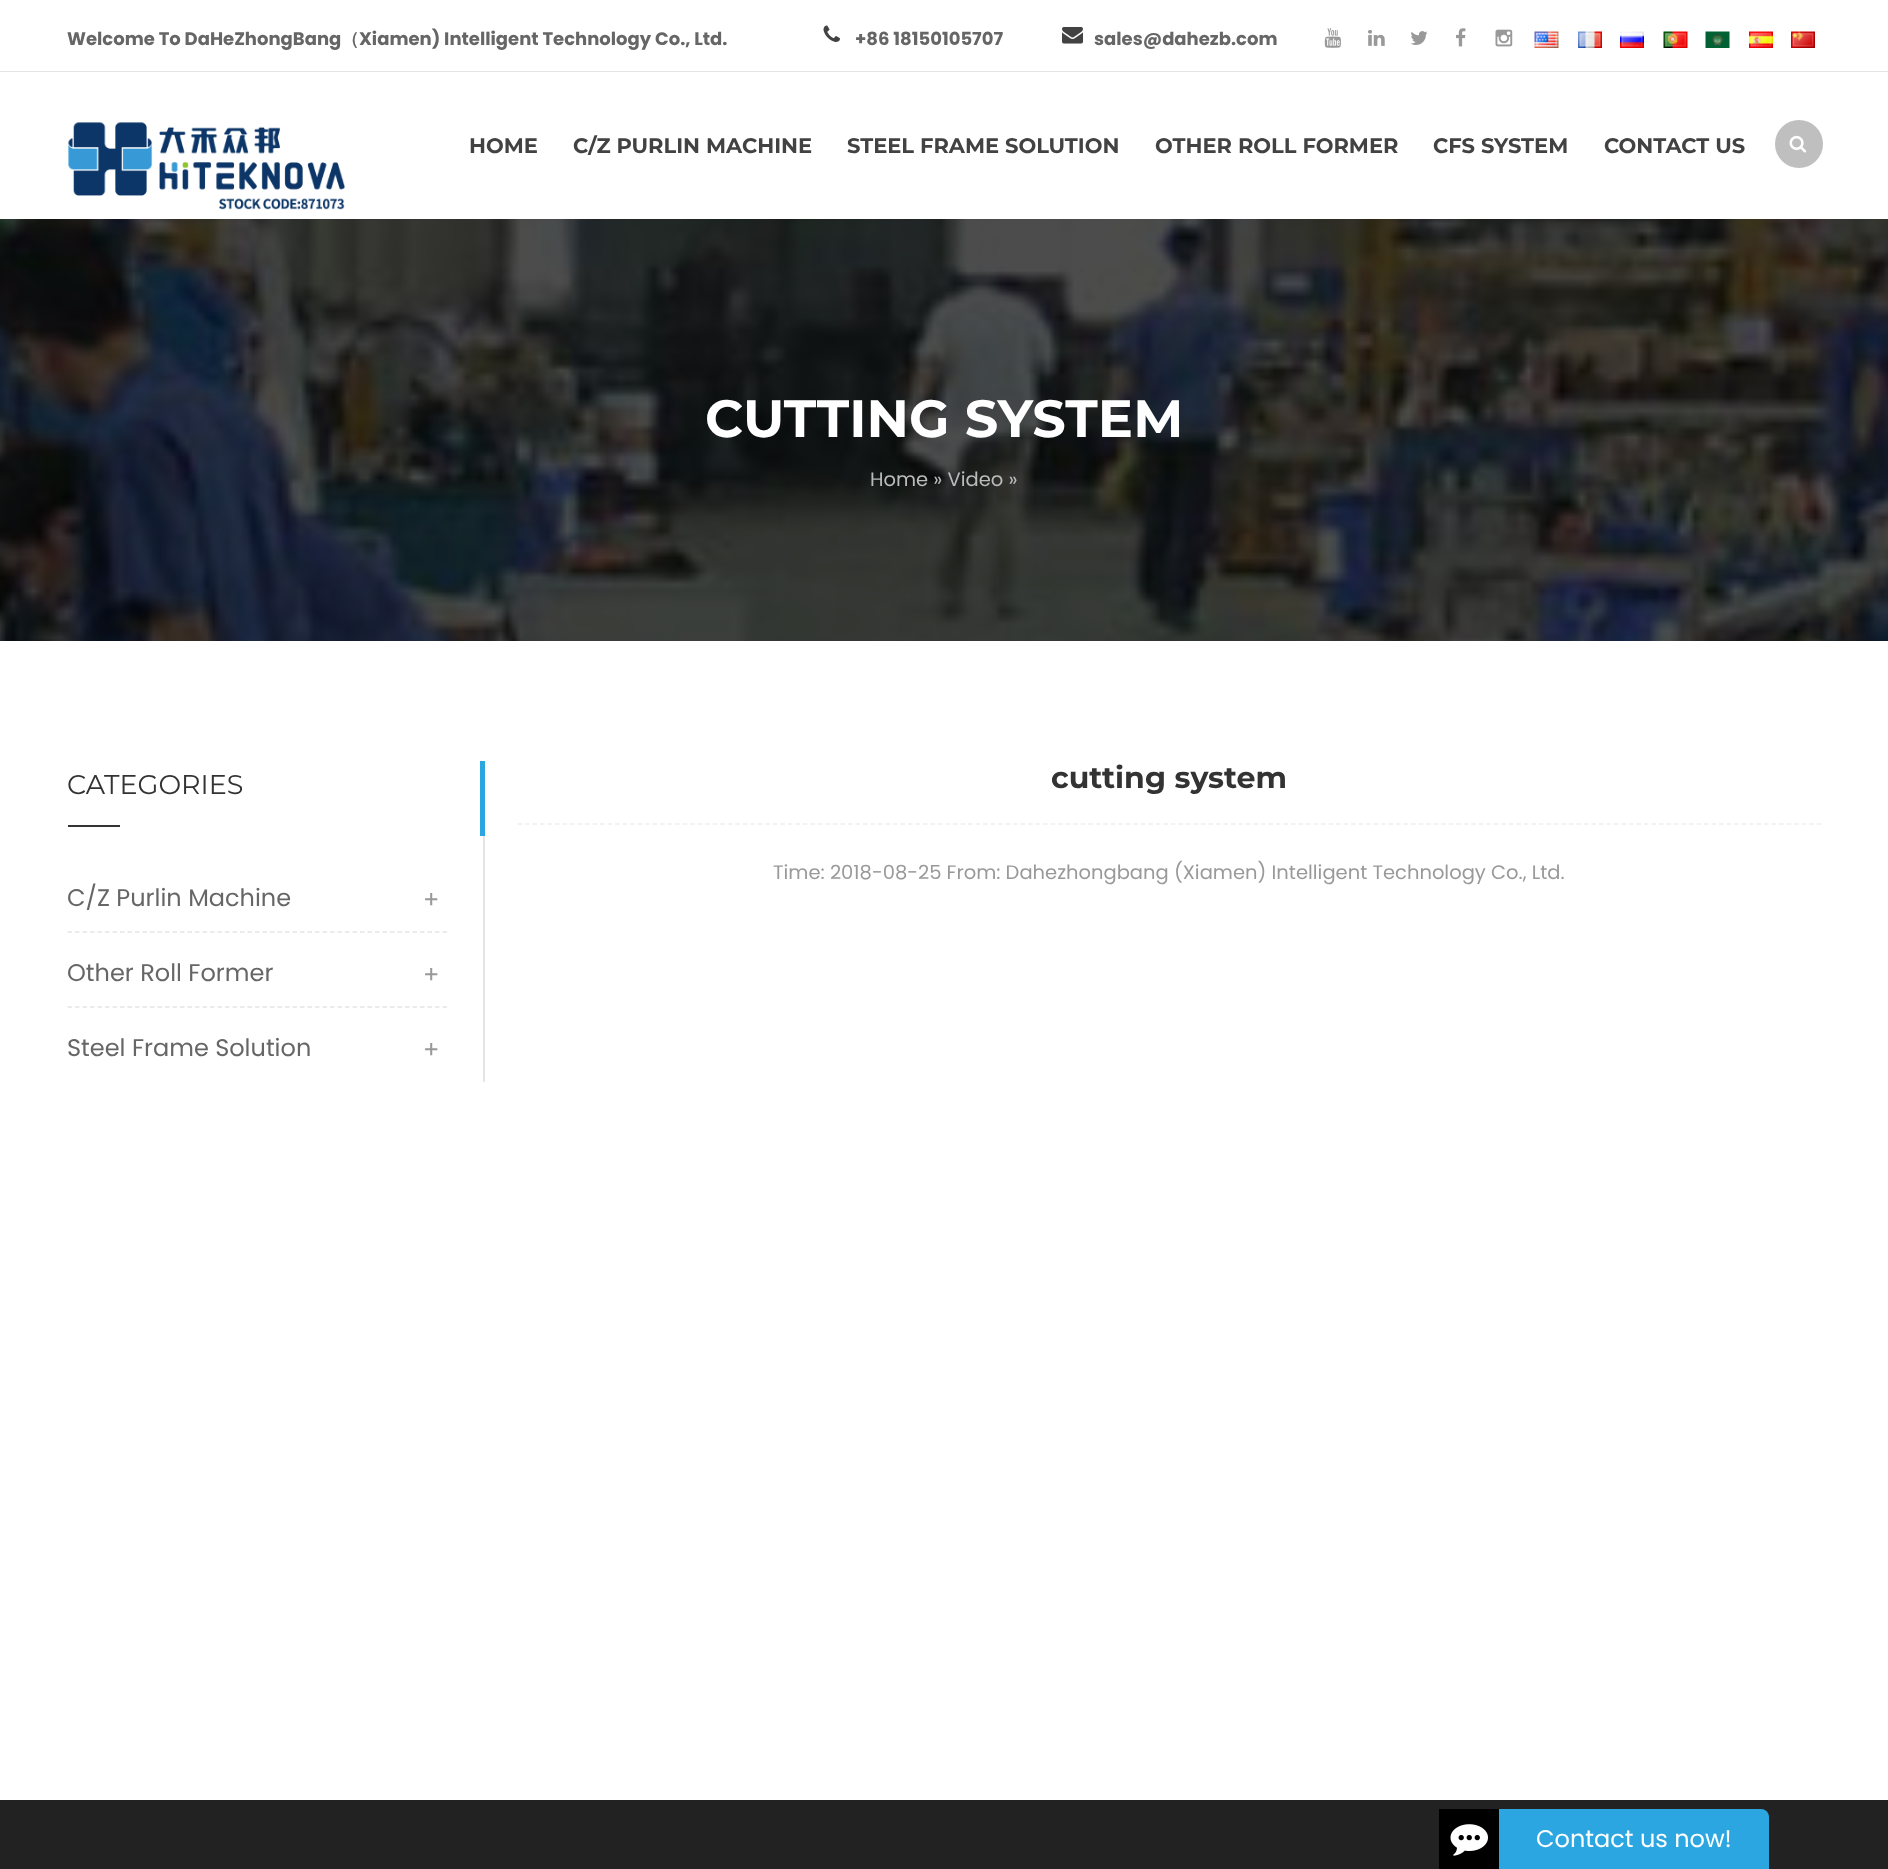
async function draw(canvas) {
  canvas.width = 1888;
  canvas.height = 1869;
  const ctx = canvas.getContext('2d');
  ctx.miterLimit = 4;
  ctx.fontKerning = 'normal';
  function label(s, x, y, font, color) {
    ctx.font = font;
    ctx.fillStyle = color;
    ctx.fillText(s, x, y);
  }
  function rect(x, y, w, h, color) {
    ctx.fillStyle = color;
    ctx.fillRect(x, y, w, h);
  }
  async function image(src, x, y, w, h) {
    const img = new Image();
    img.src = src;
    await img.decode();
    ctx.drawImage(img, x, y, w, h);
  }
  let path;

  rect(0, 0, 1888, 1869, '#fff');
  rect(0, 71, 1888, 1, '#e5e5e5');
  label('Welcome To DaHeZhongBang', 67, 45, 'bold 18px Poppins', '#666');
  label('（', 341, 45, 'bold 18px WenQuanYi Zen Hei', '#666');
  label('Xiamen) Intelligent Technology Co., Ltd.', 359, 45, 'bold 18px Poppins', '#666');
  await image('assets/img1.png', 823, 25, 17, 17);
  label('+86 18150105707', 855, 45, 'bold 18px Poppins', '#666');
  await image('assets/img2.png', 1062, 27, 21, 17);
  label('sales@dahezb.com', 1094, 45, 'bold 18px Poppins', '#666');
  await image('assets/img3.png', 1324, 28, 17, 20);
  await image('assets/img4.png', 1368, 30, 17, 16);
  await image('assets/img5.png', 1410, 31, 18, 14);
  await image('assets/img6.png', 1456, 28, 10, 19);
  await image('assets/img7.png', 1495, 29, 18, 18);
  await image('assets/img8.png', 1534, 31, 25, 17);
  await image('assets/img9.png', 1578, 31, 24, 17);
  await image('assets/img10.png', 1620, 31, 24, 17);
  await image('assets/img11.png', 1663, 31, 25, 17);
  await image('assets/img12.png', 1705, 31, 25, 17);
  await image('assets/img13.png', 1749, 31, 24, 17);
  await image('assets/img14.png', 1791, 31, 24, 17);
  await image('assets/img15.png', 68, 122, 277, 88);
  label('HOME', 469, 153, 'bold 21px Montserrat', '#424242');
  label('C/Z PURLIN MACHINE', 573, 153, 'bold 21px Montserrat', '#424242');
  label('STEEL FRAME SOLUTION', 847, 153, 'bold 21px Montserrat', '#424242');
  label('OTHER ROLL FORMER', 1155, 153, 'bold 21px Montserrat', '#424242');
  label('CFS SYSTEM', 1433, 153, 'bold 21px Montserrat', '#424242');
  label('CONTACT US', 1604, 153, 'bold 21px Montserrat', '#424242');
  ctx.fillStyle = '#bfbfbf';
  ctx.beginPath();
  ctx.arc(1799, 144, 24, 0, 2 * Math.PI);
  ctx.fill();
  await image('assets/img16.png', 1789, 135, 18, 18);
  await image('assets/img17.png', 0, 219, 1888, 422);
  ctx.letterSpacing = '0.1px';
  label('CUTTING SYSTEM', 705, 437, 'bold 52.5px Montserrat', '#fff');
  ctx.letterSpacing = '0px';
  label('Home » Video »', 870, 486, '19.5px Poppins', '#bbb');
  label('CATEGORIES', 67, 794, '27px Montserrat', '#333');
  rect(68, 825, 52, 2, '#333');
  rect(480, 761, 5, 75, '#2ca6e0');
  path = new Path2D('M67.5 932H447');
  ctx.strokeStyle = '#e5e5e5';
  ctx.lineWidth = 1.5;
  ctx.setLineDash([4.5, 3]);
  ctx.stroke(path);
  label('C/Z Purlin Machine', 67, 906, '24px Poppins', '#666');
  label('+', 423, 908, '24px Poppins', '#999');
  path = new Path2D('M67.5 1007H447');
  ctx.stroke(path);
  label('Other Roll Former', 67, 981, '24px Poppins', '#666');
  label('+', 423, 983, '24px Poppins', '#999');
  label('Steel Frame Solution', 67, 1056, '24px Poppins', '#666');
  label('+', 423, 1058, '24px Poppins', '#999');
  rect(483, 836, 2, 246, '#e5e5e5');
  path = new Path2D('M517.5 824H1822.5');
  ctx.strokeStyle = '#eee';
  ctx.setLineDash([4.5, 3.01]);
  ctx.stroke(path);
  label('cutting system', 1051, 788, 'bold 30px Montserrat', '#333');
  label('Time: 2018-08-25 From: Dahezhongbang (Xiamen) Intelligent Technology Co., Ltd.', 773, 879, '19.5px Poppins', '#999');
  rect(0, 1800, 1888, 69, '#222');
  ctx.fillStyle = '#2ca6e0';
  ctx.beginPath();
  ctx.roundRect(1439, 1809, 330, 60, [8, 8, 0, 0]);
  ctx.fill();
  rect(1439, 1809, 60, 60, '#000');
  await image('assets/img18.png', 1450, 1824, 38, 32);
  label('Contact us now!', 1536, 1847, '24px Poppins', '#fff');
}

draw(document.querySelector('canvas'));
